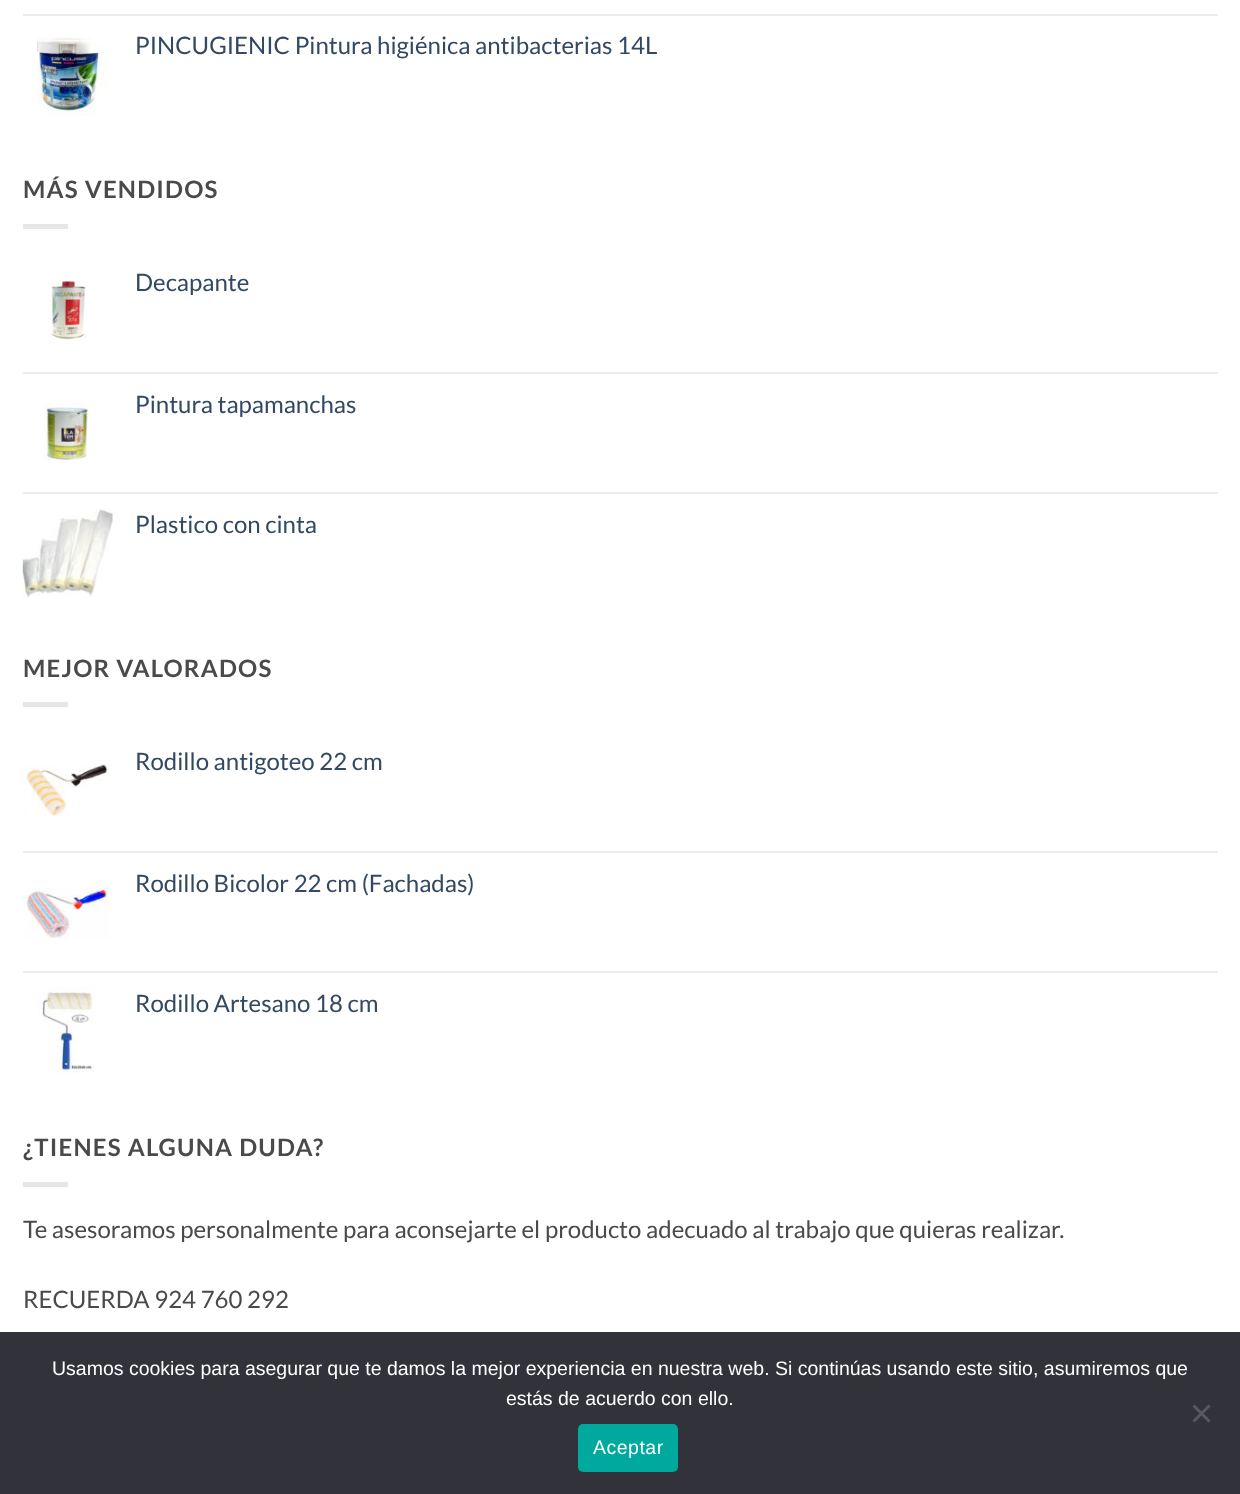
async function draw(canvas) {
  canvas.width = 1240;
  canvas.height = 1494;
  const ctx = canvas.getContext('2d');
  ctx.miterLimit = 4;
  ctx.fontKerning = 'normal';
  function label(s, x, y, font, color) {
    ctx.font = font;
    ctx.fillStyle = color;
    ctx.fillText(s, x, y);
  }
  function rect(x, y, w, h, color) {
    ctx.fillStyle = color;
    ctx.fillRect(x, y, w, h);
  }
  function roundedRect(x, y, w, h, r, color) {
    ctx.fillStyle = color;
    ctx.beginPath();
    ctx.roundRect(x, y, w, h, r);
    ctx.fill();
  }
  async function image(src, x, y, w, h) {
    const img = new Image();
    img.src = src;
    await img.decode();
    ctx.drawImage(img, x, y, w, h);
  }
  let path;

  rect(0, 0, 1240, 1494, '#fff');
  rect(23, 14, 1195, 2, '#ececec');
  await image('assets/img1.png', 37, 37, 72, 79);
  label('PINCUGIENIC Pintura higiénica antibacterias 14L', 135, 54, '24px Lato', '#334862');
  ctx.letterSpacing = '1.2px';
  label('MÁS VENDIDOS', 23, 198, 'bold 24px Lato', '#4a4a4a');
  rect(23, 224, 45, 5, '#e6e6e6');
  await image('assets/img2.png', 51, 281, 36, 59);
  ctx.letterSpacing = '0px';
  label('Decapante', 135, 291, '24px Lato', '#334862');
  rect(23, 372, 1195, 2, '#ececec');
  await image('assets/img3.png', 44, 402, 45, 58);
  label('Pintura tapamanchas', 135, 413, '24px Lato', '#334862');
  rect(23, 492, 1195, 2, '#ececec');
  await image('assets/img4.png', 22, 509, 91, 89);
  label('Plastico con cinta', 135, 533, '24px Lato', '#334862');
  ctx.letterSpacing = '1.2px';
  label('MEJOR VALORADOS', 23, 677, 'bold 24px Lato', '#4a4a4a');
  rect(23, 702, 45, 5, '#e6e6e6');
  await image('assets/img5.png', 23, 760, 86, 57);
  ctx.letterSpacing = '0px';
  label('Rodillo antigoteo 22 cm', 135, 770, '24px Lato', '#334862');
  rect(23, 851, 1195, 2, '#ececec');
  label('Rodillo Bicolor 22 cm (Fachadas)', 135, 892, '24px Lato', '#334862');
  await image('assets/img6.png', 23, 888, 86, 51);
  rect(23, 971, 1195, 2, '#ececec');
  await image('assets/img7.png', 38, 986, 57, 88);
  label('Rodillo Artesano 18 cm', 135, 1012, '24px Lato', '#334862');
  ctx.letterSpacing = '1.2px';
  label('¿TIENES ALGUNA DUDA?', 23, 1156, 'bold 24px Lato', '#4a4a4a');
  rect(23, 1182, 45, 5, '#e6e6e6');
  ctx.letterSpacing = '0px';
  label('Te asesoramos personalmente para aconsejarte el producto adecuado al trabajo que quieras realizar.', 23, 1238, '24px Lato', '#4a4a4a');
  label('RECUERDA 924 760 292', 23, 1308, '24px Lato', '#4a4a4a');
  rect(0, 1332, 1240, 162, '#32323a');
  label('Usamos cookies para asegurar que te damos la mejor experiencia en nuestra web. Si continúas usando este sitio, asumiremos que', 52, 1375, '19.5px Liberation Sans', '#fff');
  label('estás de acuerdo con ello.', 506, 1405, '19.5px Liberation Sans', '#fff');
  ctx.fillStyle = '#59595d';
  path = new Path2D('M1208.5 1404.5L1210.5 1406.5L1194.5 1422.5L1192.5 1420.5Z');
  ctx.fill(path);
  path = new Path2D('M1192.5 1406.5L1194.5 1404.5L1210.5 1420.5L1208.5 1422.5Z');
  ctx.fill(path);
  roundedRect(578, 1424, 100, 48, 5, '#00a99d');
  ctx.letterSpacing = '0.5px';
  label('Aceptar', 593, 1454, '19.5px Liberation Sans', '#fff');
}

draw(document.querySelector('canvas'));
